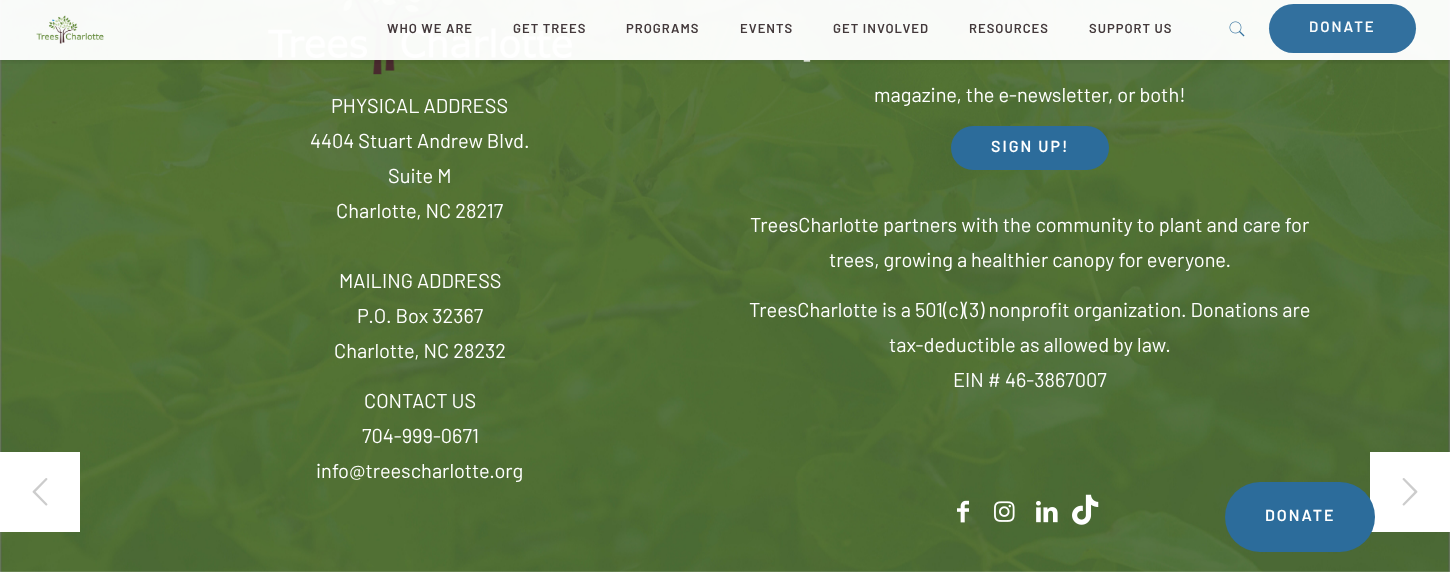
async function draw(canvas) {
  canvas.width = 1450;
  canvas.height = 572;
  const ctx = canvas.getContext('2d');
  ctx.miterLimit = 4;
  ctx.fontKerning = 'normal';
  function label(s, x, y, font, color) {
    ctx.font = font;
    ctx.fillStyle = color;
    ctx.fillText(s, x, y);
  }
  function rect(x, y, w, h, color) {
    ctx.fillStyle = color;
    ctx.fillRect(x, y, w, h);
  }
  function roundedRect(x, y, w, h, r, color) {
    ctx.fillStyle = color;
    ctx.beginPath();
    ctx.roundRect(x, y, w, h, r);
    ctx.fill();
  }
  async function image(src, x, y, w, h) {
    const img = new Image();
    img.src = src;
    await img.decode();
    ctx.drawImage(img, x, y, w, h);
  }

  rect(0, 0, 1450, 572, '#fff');
  await image('assets/img3.png', 0, 0, 1450, 572);
  await image('assets/img4.png', 268, 0, 304, 75);
  ctx.save();
  ctx.beginPath();
  ctx.rect(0, 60, 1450, 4);
  ctx.clip();
  ctx.fillStyle = '#0000001a';
  ctx.filter = 'blur(2.5px)';
  ctx.beginPath();
  ctx.rect(0, 2, 1450, 60);
  ctx.fill();
  ctx.filter = 'none';
  ctx.restore();
  rect(0, 0, 1450, 60, '#fffffff7');
  await image('assets/img1.png', 36, 15, 68, 29);
  ctx.letterSpacing = '1px';
  label('WHO WE ARE', 387, 33, '600 13px Barlow', '#43393b');
  label('GET TREES', 513, 33, '600 13px Barlow', '#43393b');
  label('PROGRAMS', 626, 33, '600 13px Barlow', '#43393b');
  label('EVENTS', 740, 33, '600 13px Barlow', '#43393b');
  label('GET INVOLVED', 833, 33, '600 13px Barlow', '#43393b');
  label('RESOURCES', 969, 33, '600 13px Barlow', '#43393b');
  label('SUPPORT US', 1089, 33, '600 13px Barlow', '#43393b');
  await image('assets/img2.png', 1229, 21, 16, 16);
  roundedRect(1269, 4, 147, 49, 24.5, '#32709e');
  ctx.letterSpacing = '2px';
  label('DONATE', 1309, 32, '600 15px Barlow', '#f9fbfc');
  ctx.letterSpacing = '0px';
  label('PHYSICAL ADDRESS', 331, 113, '20px Barlow', '#fff');
  label('4404 Stuart Andrew Blvd.', 310, 148, '20px Barlow', '#fff');
  label('Suite M', 388, 183, '20px Barlow', '#fff');
  label('Charlotte, NC 28217', 336, 218, '20px Barlow', '#fff');
  label('MAILING ADDRESS', 339, 288, '20px Barlow', '#fff');
  label('P.O. Box 32367', 357, 323, '20px Barlow', '#fff');
  label('Charlotte, NC 28232', 334, 358, '20px Barlow', '#fff');
  label('CONTACT US', 364, 408, '20px Barlow', '#fff');
  label('704-999-0671', 362, 443, '20px Barlow', '#fff');
  label('info@treescharlotte.org', 316, 478, '20px Barlow', '#fff');
  label('-', 803, 67, '20px Barlow', '#fff');
  label('magazine, the e-newsletter, or both!', 874, 102, '20px Barlow', '#fff');
  roundedRect(951, 126, 158, 44, 22, '#2c6c9b');
  ctx.letterSpacing = '2px';
  label('SIGN UP!', 991, 152, '600 16px Barlow', '#fff');
  ctx.letterSpacing = '0px';
  label('TreesCharlotte partners with the community to plant and care for', 750, 232, '20px Barlow', '#fff');
  label('trees, growing a healthier canopy for everyone.', 829, 267, '20px Barlow', '#fff');
  label('TreesCharlotte is a 501(c)(3) nonprofit organization. Donations are', 749, 317, '20px Barlow', '#fff');
  label('tax-deductible as allowed by law.', 889, 352, '20px Barlow', '#fff');
  label('EIN # 46-3867007', 953, 387, '20px Barlow', '#fff');
  await image('assets/img5.png', 957, 500, 12, 23);
  await image('assets/img6.png', 994, 501, 21, 21);
  await image('assets/img7.png', 1036, 501, 22, 22);
  await image('assets/img8.png', 1072, 494, 27, 31);
  rect(0, 452, 80, 80, '#fff');
  await image('assets/img9.png', 32, 478, 16, 28);
  rect(1370, 452, 80, 80, '#fff');
  roundedRect(1225, 482, 150, 70, 35, '#2c6c9b');
  ctx.letterSpacing = '2px';
  label('DONATE', 1265, 521, '600 16px Barlow', '#fff');
  await image('assets/img10.png', 1402, 478, 16, 28);
}

draw(document.querySelector('canvas'));
